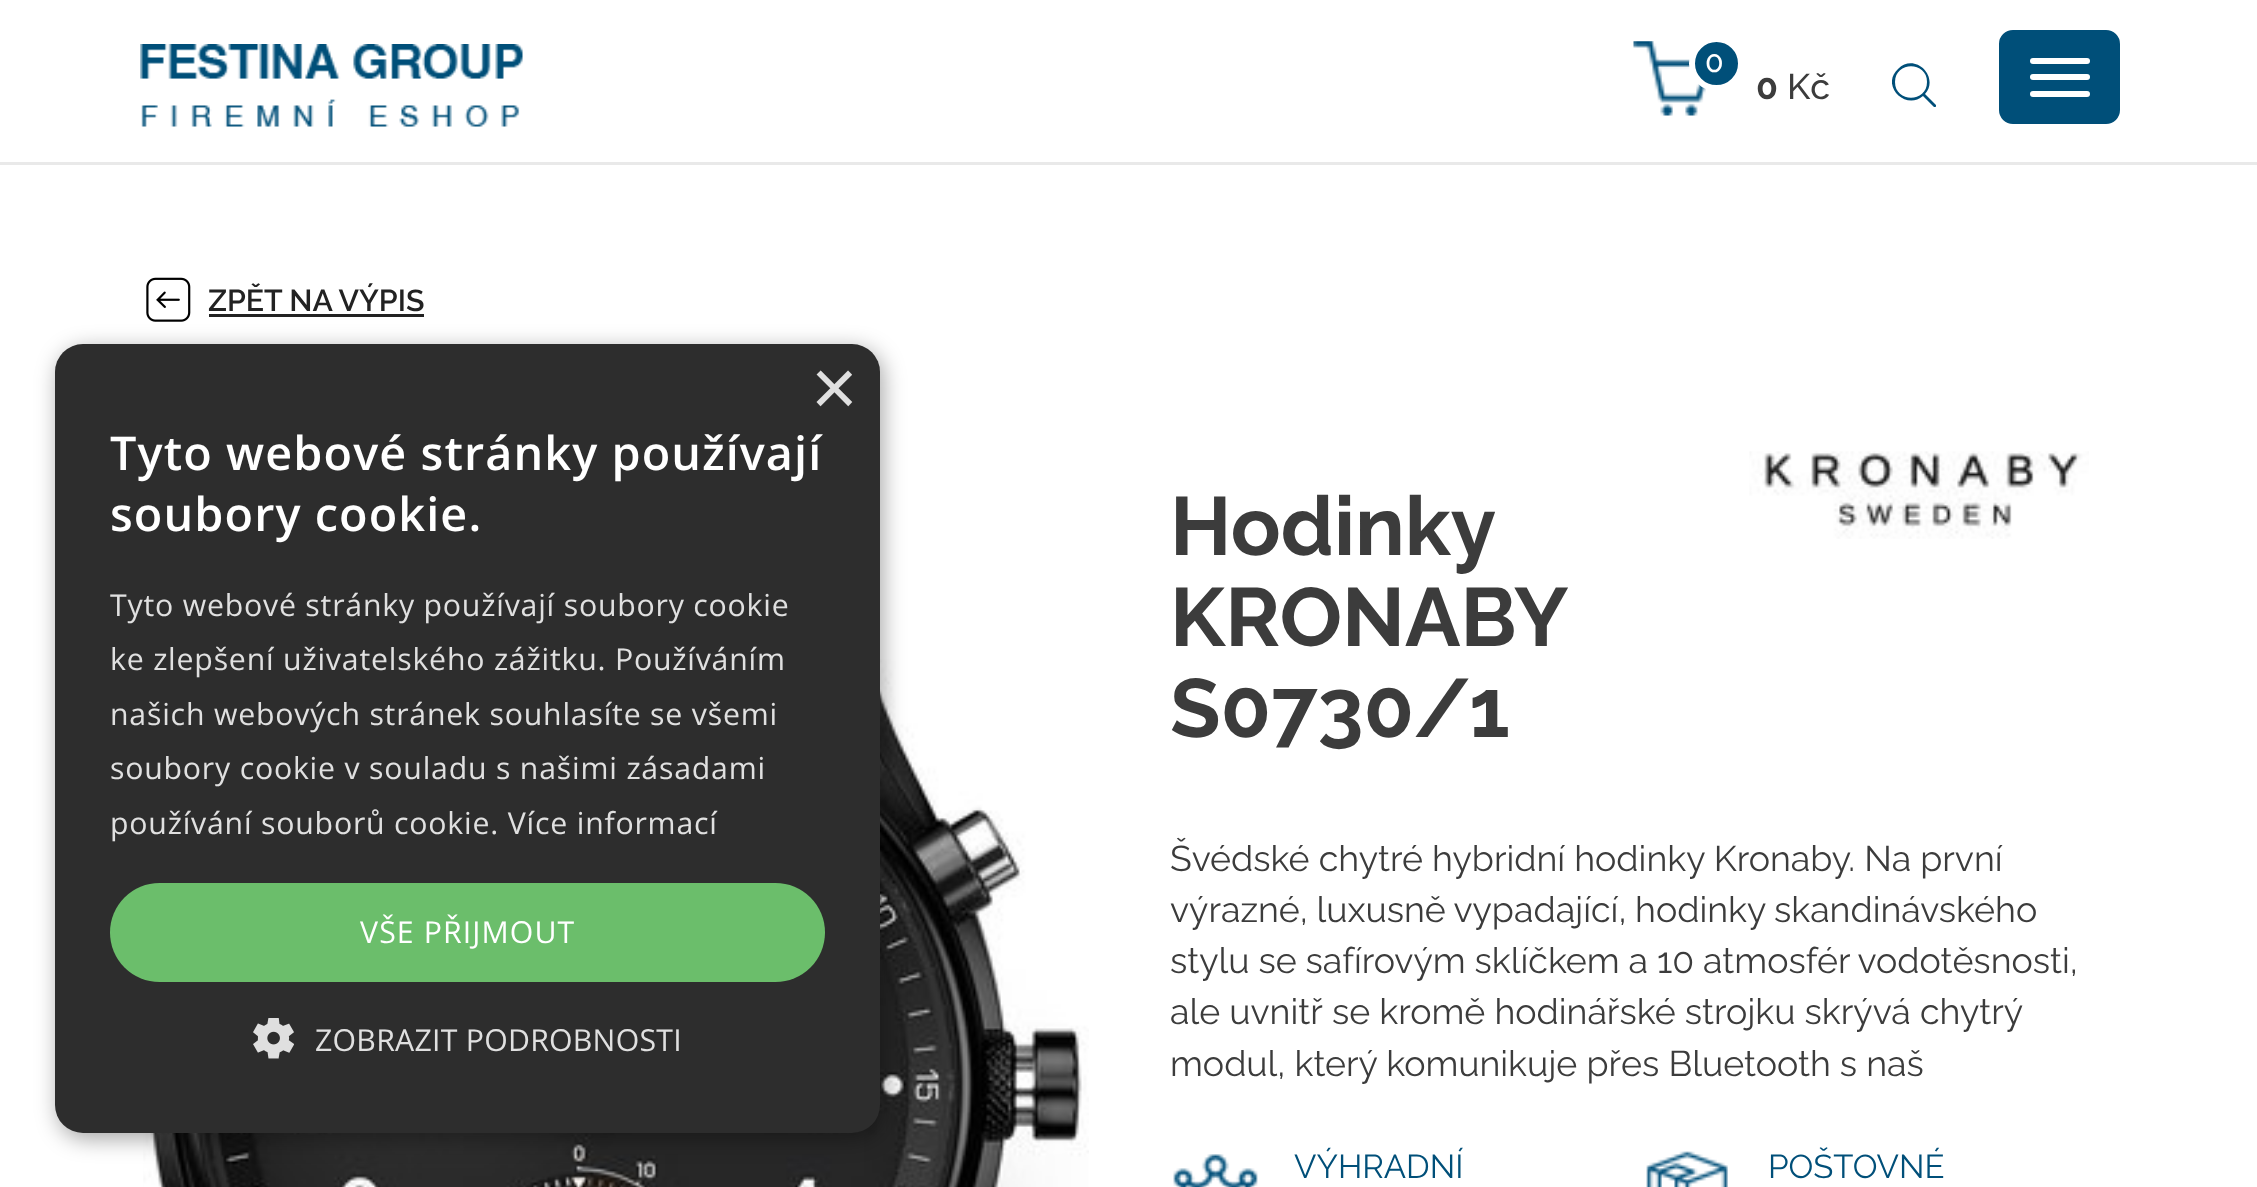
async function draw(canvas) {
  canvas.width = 2257;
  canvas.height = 1187;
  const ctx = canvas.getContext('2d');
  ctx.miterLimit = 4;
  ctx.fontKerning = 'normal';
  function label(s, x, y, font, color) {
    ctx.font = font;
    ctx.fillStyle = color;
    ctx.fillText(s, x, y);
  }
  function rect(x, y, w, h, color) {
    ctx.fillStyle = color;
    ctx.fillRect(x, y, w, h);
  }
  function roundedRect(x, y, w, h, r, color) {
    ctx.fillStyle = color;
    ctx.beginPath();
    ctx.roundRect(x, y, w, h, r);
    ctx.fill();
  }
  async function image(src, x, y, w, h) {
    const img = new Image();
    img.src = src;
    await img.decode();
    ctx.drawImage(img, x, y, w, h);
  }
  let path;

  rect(0, 0, 2257, 1187, '#fff');
  rect(0, 162, 2257, 3, '#e9e9e9');
  await image('assets/img1.png', 140, 44, 383, 83);
  ctx.fillStyle = '#004f79';
  ctx.beginPath();
  ctx.roundRect(2000.5, 31.5, 118, 91, 12.5);
  ctx.fill();
  ctx.strokeStyle = '#004f79';
  ctx.lineWidth = 3;
  ctx.stroke();
  roundedRect(2030, 58, 60, 6, 3, '#fff');
  roundedRect(2030, 74, 60, 6, 3, '#fff');
  roundedRect(2030, 91, 60, 6, 3, '#fff');
  await image('assets/img2.png', 1633, 41, 73, 75);
  ctx.fillStyle = '#004f79';
  ctx.beginPath();
  ctx.arc(1716.5, 63.5, 24.5, 0, 2 * Math.PI);
  ctx.fill();
  ctx.strokeStyle = '#fff';
  ctx.lineWidth = 6;
  ctx.stroke();
  label('0', 1705, 72, '500 30.25px Raleway', '#fff');
  label('0', 1756, 99, 'bold 35.75px Raleway', '#3c3c3c');
  label('Kč', 1787, 99, '500 35.75px Raleway', '#3c3c3c');
  ctx.save();
  ctx.beginPath();
  ctx.rect(1892, 63, 44, 44);
  ctx.clip();
  ctx.fillStyle = '#004f79';
  path = new Path2D('M1936 105L1925 94C1940 77 1915 52 1898 69C1880 86 1906 111 1923 96L1934 107C1935 108 1936 107 1936 106ZM1895 82C1895 61 1927 61 1927 82C1927 103 1895 103 1895 82Z');
  ctx.fill(path);
  ctx.restore();
  await image('assets/img3.png', 146, 277, 45, 45);
  label('ZPĚT NA VÝPIS', 208, 311, '600 30.25px Raleway', '#222');
  rect(209, 314, 215, 3, '#222');
  await image('assets/img4.png', 143, 379, 946, 808);
  label('Hodinky', 1170, 555, 'bold 82.5px Raleway', '#3c3c3c');
  label('KRONABY', 1170, 646, 'bold 82.5px Raleway', '#3c3c3c');
  label('S0730/1', 1170, 737, 'bold 82.5px Raleway', '#3c3c3c');
  await image('assets/img5.png', 1749, 451, 340, 88);
  label('Švédské chytré hybridní hodinky Kronaby. Na první', 1170, 871, '35.75px Raleway', '#3c3c3c');
  ctx.wordSpacing = '-0.5px';
  label('výrazné, luxusně vypadající, hodinky skandinávského', 1170, 922, '35.75px Raleway', '#3c3c3c');
  ctx.wordSpacing = '-0.25px';
  label('stylu se safírovým sklíčkem a 10 atmosfér vodotěsnosti,', 1170, 973, '35.75px Raleway', '#3c3c3c');
  ctx.wordSpacing = '0px';
  label('ale uvnitř se kromě hodinářské strojku skrývá chytrý', 1170, 1024, '35.75px Raleway', '#3c3c3c');
  label('modul, který komunikuje přes Bluetooth s naš', 1170, 1076, '35.75px Raleway', '#3c3c3c');
  await image('assets/img6.png', 1173, 1154, 85, 33);
  label('VÝHRADNÍ', 1294, 1178, '33px Raleway', '#004f79');
  await image('assets/img7.png', 1646, 1151, 82, 36);
  label('POŠTOVNÉ', 1768, 1178, '33px Raleway', '#004f79');
  ctx.fillStyle = '#00000059';
  ctx.filter = 'blur(11px)';
  ctx.beginPath();
  ctx.roundRect(58, 349, 825, 790, 28);
  ctx.fill();
  ctx.filter = 'none';
  roundedRect(55, 344, 825, 789, 28, '#2d2d2d');
  label('×', 811, 415, '80px Liberation Sans', '#e0e0e0');
  ctx.letterSpacing = '1.1px';
  label('Tyto webové stránky používají', 110, 470, '600 46.75px Open Sans', '#fff');
  label('soubory cookie.', 110, 531, '600 46.75px Open Sans', '#fff');
  ctx.letterSpacing = '0.8px';
  label('Tyto webové stránky používají soubory cookie', 110, 616, '30.25px Open Sans', '#e0e0e0');
  label('ke zlepšení uživatelského zážitku. Používáním', 110, 670, '30.25px Open Sans', '#e0e0e0');
  label('našich webových stránek souhlasíte se všemi', 110, 725, '30.25px Open Sans', '#e0e0e0');
  label('soubory cookie v souladu s našimi zásadami', 110, 779, '30.25px Open Sans', '#e0e0e0');
  label('používání souborů cookie. Více informací', 110, 834, '30.25px Open Sans', '#e0e0e0');
  roundedRect(110, 883, 715, 99, 49.5, '#6bbe6b');
  ctx.letterSpacing = '1.1px';
  label('VŠE PŘIJMOUT', 360, 943, '30.25px Open Sans', '#fff');
  await image('assets/img8.png', 253, 1018, 41, 41);
  ctx.letterSpacing = '0.25px';
  label('ZOBRAZIT PODROBNOSTI', 315, 1051, '30.25px Open Sans', '#e0e0e0');
}

draw(document.querySelector('canvas'));
